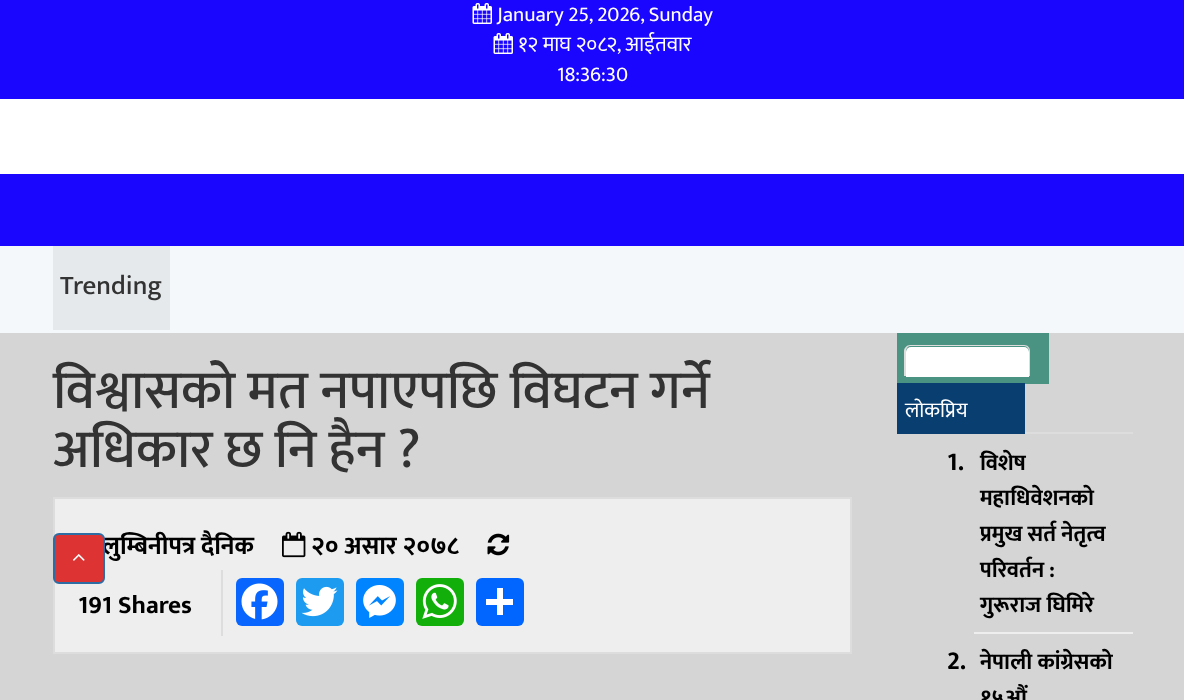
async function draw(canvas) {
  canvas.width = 1184;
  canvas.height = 700;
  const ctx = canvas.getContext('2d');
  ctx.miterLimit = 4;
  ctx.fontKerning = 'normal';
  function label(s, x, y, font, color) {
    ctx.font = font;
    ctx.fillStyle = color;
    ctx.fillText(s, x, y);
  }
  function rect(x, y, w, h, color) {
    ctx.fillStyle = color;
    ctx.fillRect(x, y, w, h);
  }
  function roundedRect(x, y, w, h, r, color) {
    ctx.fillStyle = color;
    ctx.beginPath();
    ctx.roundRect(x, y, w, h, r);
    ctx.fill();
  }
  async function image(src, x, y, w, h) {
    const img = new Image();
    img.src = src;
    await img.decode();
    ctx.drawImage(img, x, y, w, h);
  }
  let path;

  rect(0, 0, 1184, 700, '#fff');
  rect(0, 0, 1184, 99, '#1a06fe');
  await image('assets/img1.png', 472, 3, 20, 21);
  label('January 25, 2026, Sunday', 497, 21, '21px Mukta', '#fff');
  await image('assets/img1.png', 493, 33, 20, 21);
  label('१२ माघ २०८२, आईतवार', 518, 51, '21px Mukta', '#fff');
  label('18:36:30', 557, 81, '21px Mukta', '#fff');
  rect(0, 174, 1184, 72, '#1a06fe');
  rect(0, 246, 1184, 87, '#f4f8fb');
  rect(53, 246, 117, 84, '#e5e9ec');
  label('Trending', 60, 294, '500 27px Mukta', '#333');
  rect(0, 333, 1184, 367, '#d5d5d5');
  label('विश्वासको मत नपाएपछि विघटन गर्ने', 53, 408, '500 54px Mukta', '#333');
  label('अधिकार छ नि हैन ?', 53, 467, '500 54px Mukta', '#333');
  ctx.fillStyle = '#eee';
  ctx.beginPath();
  ctx.rect(54, 498, 797, 155);
  ctx.fill();
  ctx.strokeStyle = '#ddd';
  ctx.lineWidth = 2;
  ctx.stroke();
  label('लुम्बिनीपत्र दैनिक', 102, 554, 'bold 25.25px Mukta', '#000');
  await image('assets/img2.png', 282, 531, 24, 27);
  label('२० असार २०७८', 311, 554, 'bold 25.25px Mukta', '#000');
  await image('assets/img3.png', 487, 533, 23, 23);
  label('191 Shares', 78, 613, 'bold 25.25px Mukta', '#000');
  rect(221, 570, 2, 66, '#ddd');
  roundedRect(236, 578, 48, 48, 6, '#0866ff');
  await image('assets/img4.png', 241, 583, 37, 37);
  roundedRect(296, 578, 48, 48, 6, '#1d9bf0');
  await image('assets/img5.png', 301, 586, 37, 31);
  roundedRect(356, 578, 48, 48, 6, '#0084ff');
  await image('assets/img6.png', 363, 585, 33, 33);
  roundedRect(416, 578, 48, 48, 6, '#12af0a');
  await image('assets/img7.png', 422, 584, 35, 35);
  roundedRect(476, 578, 48, 48, 6, '#0166ff');
  rect(497, 588, 6, 27, '#fff');
  rect(486, 599, 27, 6, '#fff');
  rect(1025, 432, 108, 2, '#ddd');
  rect(897, 333, 152, 51, '#4a9382');
  ctx.fillStyle = '#fff';
  ctx.beginPath();
  ctx.roundRect(906, 347, 123, 30, [5, 5, 0, 0]);
  ctx.fill();
  ctx.fillStyle = '#ddd';
  path = new Path2D('M910 345H1024C1028 345 1030 348 1030 351V376H904V351C904 348 907 345 910 345ZM910 346H1024C1027 346 1029 349 1029 351V376H906V351C906 349 908 346 910 346Z');
  ctx.fill(path, 'evenodd');
  rect(897, 383, 128, 51, '#093e70');
  label('लोकप्रिय', 905, 417, '21px Mukta', '#fff');
  rect(974, 632, 159, 2, '#eee');
  label('1.', 947, 470, 'bold 26px Mukta', '#000');
  label('विशेष', 980, 470, 'bold 22.5px Mukta', '#000');
  label('महाधिवेशनको', 980, 505, 'bold 22.5px Mukta', '#000');
  label('प्रमुख सर्त नेतृत्व', 980, 541, 'bold 22.5px Mukta', '#000');
  label('परिवर्तन :', 980, 577, 'bold 22.5px Mukta', '#000');
  label('गुरूराज घिमिरे', 980, 612, 'bold 22.5px Mukta', '#000');
  label('2.', 947, 669, 'bold 26px Mukta', '#000');
  label('नेपाली कांग्रेसको', 980, 669, 'bold 22.5px Mukta', '#000');
  label('१५औं', 980, 705, 'bold 22.5px Mukta', '#000');
  ctx.fillStyle = '#d33';
  ctx.beginPath();
  ctx.roundRect(54, 534, 50, 49, 5);
  ctx.fill();
  ctx.strokeStyle = '#2e6da4';
  ctx.stroke();
  await image('assets/img8.png', 73, 554, 12, 7);
}

draw(document.querySelector('canvas'));
